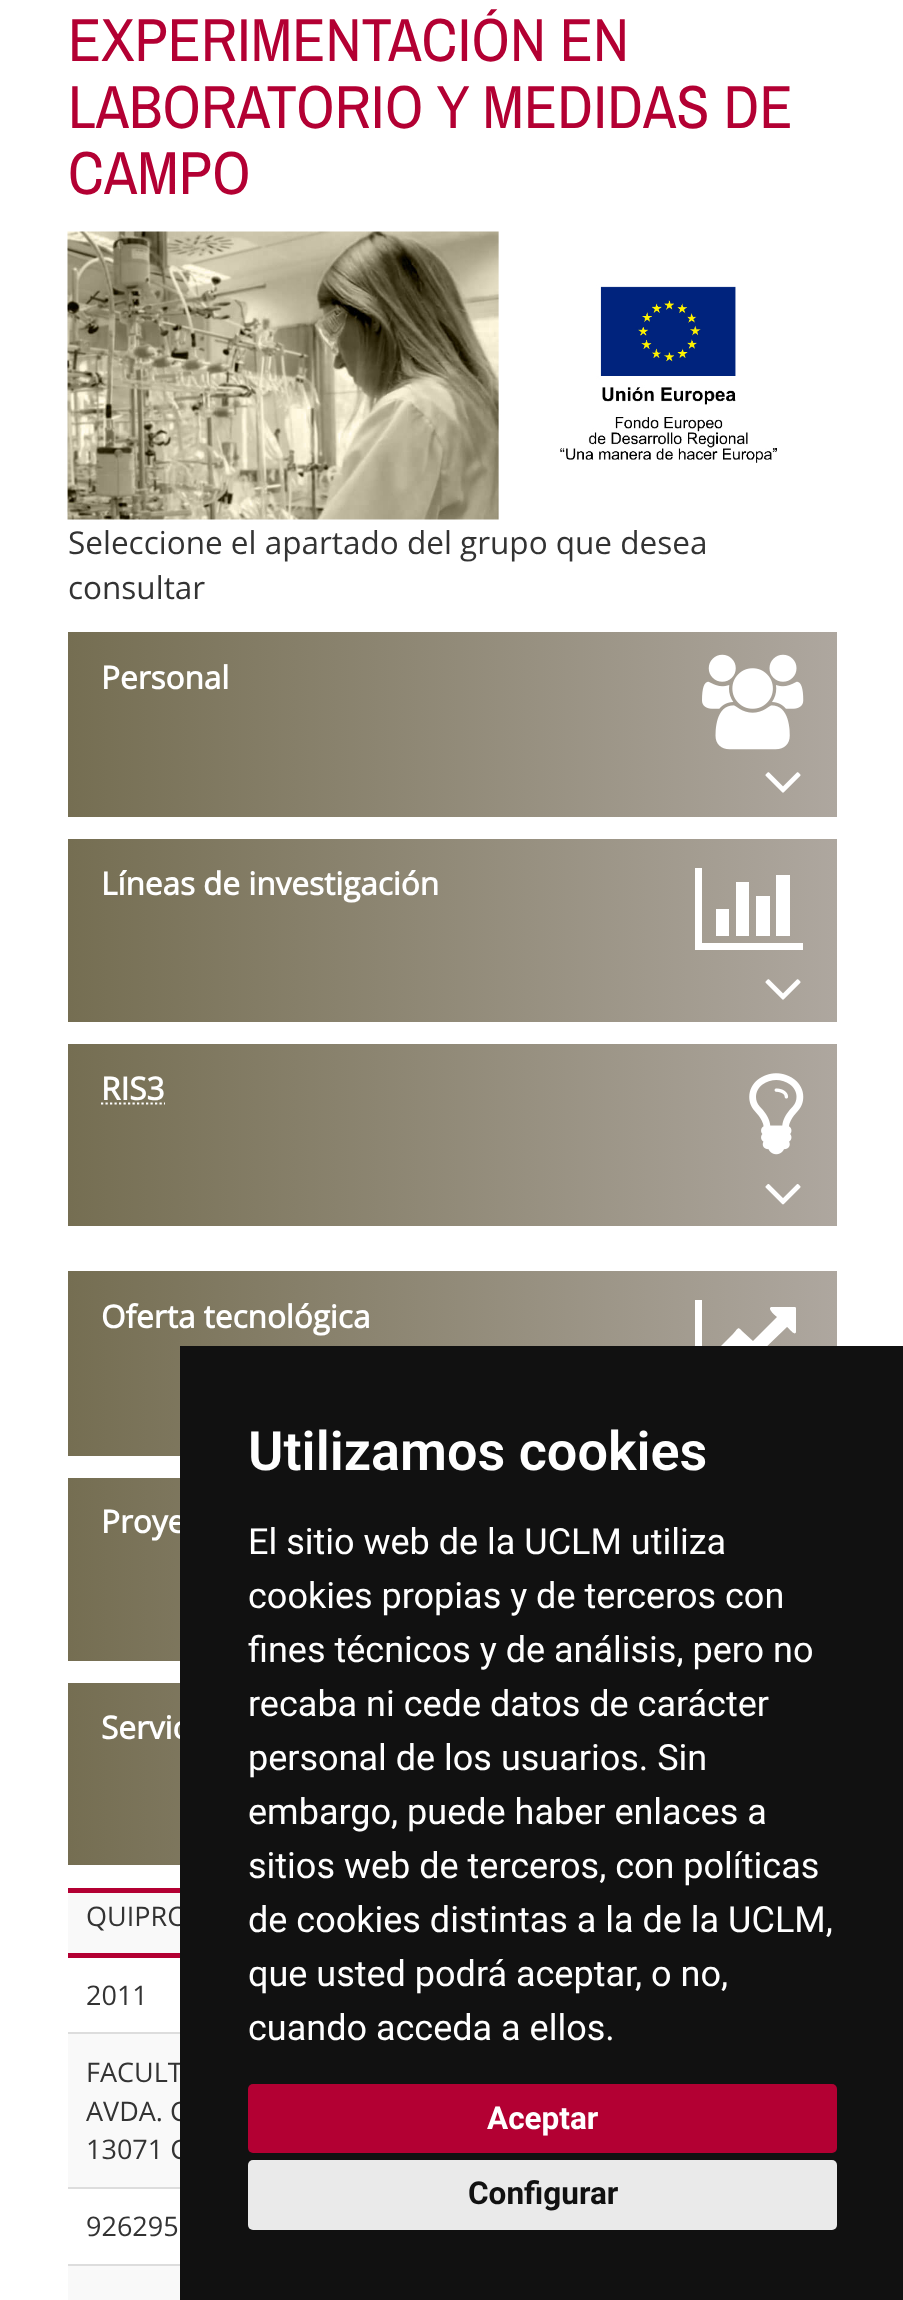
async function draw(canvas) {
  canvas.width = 903;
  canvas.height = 2300;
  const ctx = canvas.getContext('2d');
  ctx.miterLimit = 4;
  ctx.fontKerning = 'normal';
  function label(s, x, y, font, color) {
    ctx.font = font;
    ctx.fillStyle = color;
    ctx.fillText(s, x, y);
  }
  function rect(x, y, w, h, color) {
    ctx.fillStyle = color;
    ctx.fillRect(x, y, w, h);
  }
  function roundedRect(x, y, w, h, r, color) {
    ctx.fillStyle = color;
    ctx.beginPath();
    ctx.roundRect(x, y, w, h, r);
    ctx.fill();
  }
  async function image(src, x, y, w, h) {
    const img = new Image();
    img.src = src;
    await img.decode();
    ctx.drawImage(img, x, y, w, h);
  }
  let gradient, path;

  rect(0, 0, 903, 2300, '#fff');
  label('EXPERIMENTACIÓN EN', 68, 61, '60.75px Archivo Narrow', '#b30033');
  label('LABORATORIO Y MEDIDAS DE', 68, 128, '60.75px Archivo Narrow', '#b30033');
  label('CAMPO', 68, 194, '60.75px Archivo Narrow', '#b30033');
  await image('assets/img1.png', 67, 231, 710, 289);
  label('Seleccione el apartado del grupo que desea', 68, 554, '31.5px Open Sans', '#333');
  label('consultar', 68, 599, '31.5px Open Sans', '#333');
  gradient = ctx.createLinearGradient(68, 725, 837, 725);
  gradient.addColorStop(0, '#756e52');
  gradient.addColorStop(1, '#aea79f');
  ctx.fillStyle = gradient;
  ctx.fillRect(68, 632, 769, 185);
  label('Personal', 101, 689, 'bold 31.5px Open Sans', '#fff');
  await image('assets/img2.png', 702, 654, 102, 96);
  await image('assets/img3.png', 765, 772, 36, 21);
  gradient = ctx.createLinearGradient(68, 930, 837, 930);
  gradient.addColorStop(0, '#756e52');
  gradient.addColorStop(1, '#aea79f');
  ctx.fillStyle = gradient;
  ctx.fillRect(68, 839, 769, 183);
  label('Líneas de investigación', 101, 895, 'bold 31.5px Open Sans', '#fff');
  path = new Path2D('M729 909V936H716V909ZM749 882V936H736V882ZM803 943V950H695V868H702V943ZM770 896V936H756V896ZM790 875V936H776V875Z');
  ctx.fill(path);
  await image('assets/img3.png', 765, 979, 36, 21);
  gradient = ctx.createLinearGradient(68, 1135, 837, 1135);
  gradient.addColorStop(0, '#756e52');
  gradient.addColorStop(1, '#aea79f');
  ctx.fillStyle = gradient;
  ctx.fillRect(68, 1044, 769, 182);
  label('RIS3', 101, 1100, 'bold 31.5px Open Sans', '#fff');
  path = new Path2D('M101 1103.5H165');
  ctx.strokeStyle = '#fff';
  ctx.lineWidth = 2.2;
  ctx.setLineDash([2.25, 2.25]);
  ctx.stroke(path);
  await image('assets/img4.png', 749, 1073, 55, 82);
  await image('assets/img5.png', 765, 1184, 36, 21);
  gradient = ctx.createLinearGradient(68, 1364, 837, 1364);
  gradient.addColorStop(0, '#756e52');
  gradient.addColorStop(1, '#aea79f');
  ctx.fillStyle = gradient;
  ctx.fillRect(68, 1271, 769, 185);
  label('Oferta tecnológica', 101, 1328, 'bold 31.5px Open Sans', '#fff');
  path = new Path2D('M803 1375V1382H695V1300H702V1375ZM796 1309V1332C795 1337 788 1327 787 1327L759 1354C754 1360 754 1363 749 1358L739 1348L717 1370L707 1360L733 1334C738 1328 738 1326 742 1331L753 1341L777 1317C776 1316 767 1309 771 1307H795C796 1307 796 1308 796 1309Z');
  ctx.fill(path);
  gradient = ctx.createLinearGradient(68, 1569, 837, 1569);
  gradient.addColorStop(0, '#756e52');
  gradient.addColorStop(1, '#aea79f');
  ctx.fillStyle = gradient;
  ctx.fillRect(68, 1478, 112, 183);
  label('Proye', 101, 1533, 'bold 31.5px Open Sans', '#fff');
  gradient = ctx.createLinearGradient(68, 1774, 837, 1774);
  gradient.addColorStop(0, '#756e52');
  gradient.addColorStop(1, '#aea79f');
  ctx.fillStyle = gradient;
  ctx.fillRect(68, 1683, 112, 182);
  label('Servic', 101, 1739, 'bold 31.5px Open Sans', '#fff');
  rect(68, 1893, 112, 60, '#f9f9f9');
  rect(68, 1888, 112, 5, '#b30033');
  rect(68, 1953, 112, 5, '#b30033');
  label('QUIPRO', 86, 1926, '27px Open Sans', '#333');
  label('2011', 86, 2005, '27px Open Sans', '#333');
  rect(68, 2034, 112, 153, '#f9f9f9');
  rect(68, 2032, 112, 2, '#ddd');
  label('FACULT', 86, 2082, '27px Open Sans', '#333');
  label('AVDA. C', 86, 2121, '27px Open Sans', '#333');
  label('13071 C', 86, 2159, '27px Open Sans', '#333');
  rect(68, 2187, 112, 2, '#ddd');
  label('926295', 86, 2236, '27px Open Sans', '#333');
  rect(68, 2266, 112, 34, '#f9f9f9');
  rect(68, 2264, 112, 2, '#ddd');
  rect(180, 1346, 723, 954, '#111');
  label('Utilizamos cookies', 248, 1470, '600 54px Roboto', '#fff');
  label('El sitio web de la UCLM utiliza', 248, 1554, '36px Roboto', '#fff');
  label('cookies propias y de terceros con', 248, 1608, '36px Roboto', '#fff');
  label('fines técnicos y de análisis, pero no', 248, 1662, '36px Roboto', '#fff');
  label('recaba ni cede datos de carácter', 248, 1716, '36px Roboto', '#fff');
  label('personal de los usuarios. Sin', 248, 1770, '36px Roboto', '#fff');
  label('embargo, puede haber enlaces a', 248, 1824, '36px Roboto', '#fff');
  label('sitios web de terceros, con políticas', 248, 1878, '36px Roboto', '#fff');
  label('de cookies distintas a la de la UCLM,', 248, 1932, '36px Roboto', '#fff');
  label('que usted podrá aceptar, o no,', 248, 1986, '36px Roboto', '#fff');
  label('cuando acceda a ellos.', 248, 2040, '36px Roboto', '#fff');
  roundedRect(248, 2084, 589, 69, 5, '#b30033');
  label('Aceptar', 487, 2129, 'bold 31.5px Roboto', '#fff');
  roundedRect(248, 2160, 589, 70, 5, '#eaeaea');
  label('Configurar', 468, 2204, 'bold 31.5px Roboto', '#111');
}

draw(document.querySelector('canvas'));
